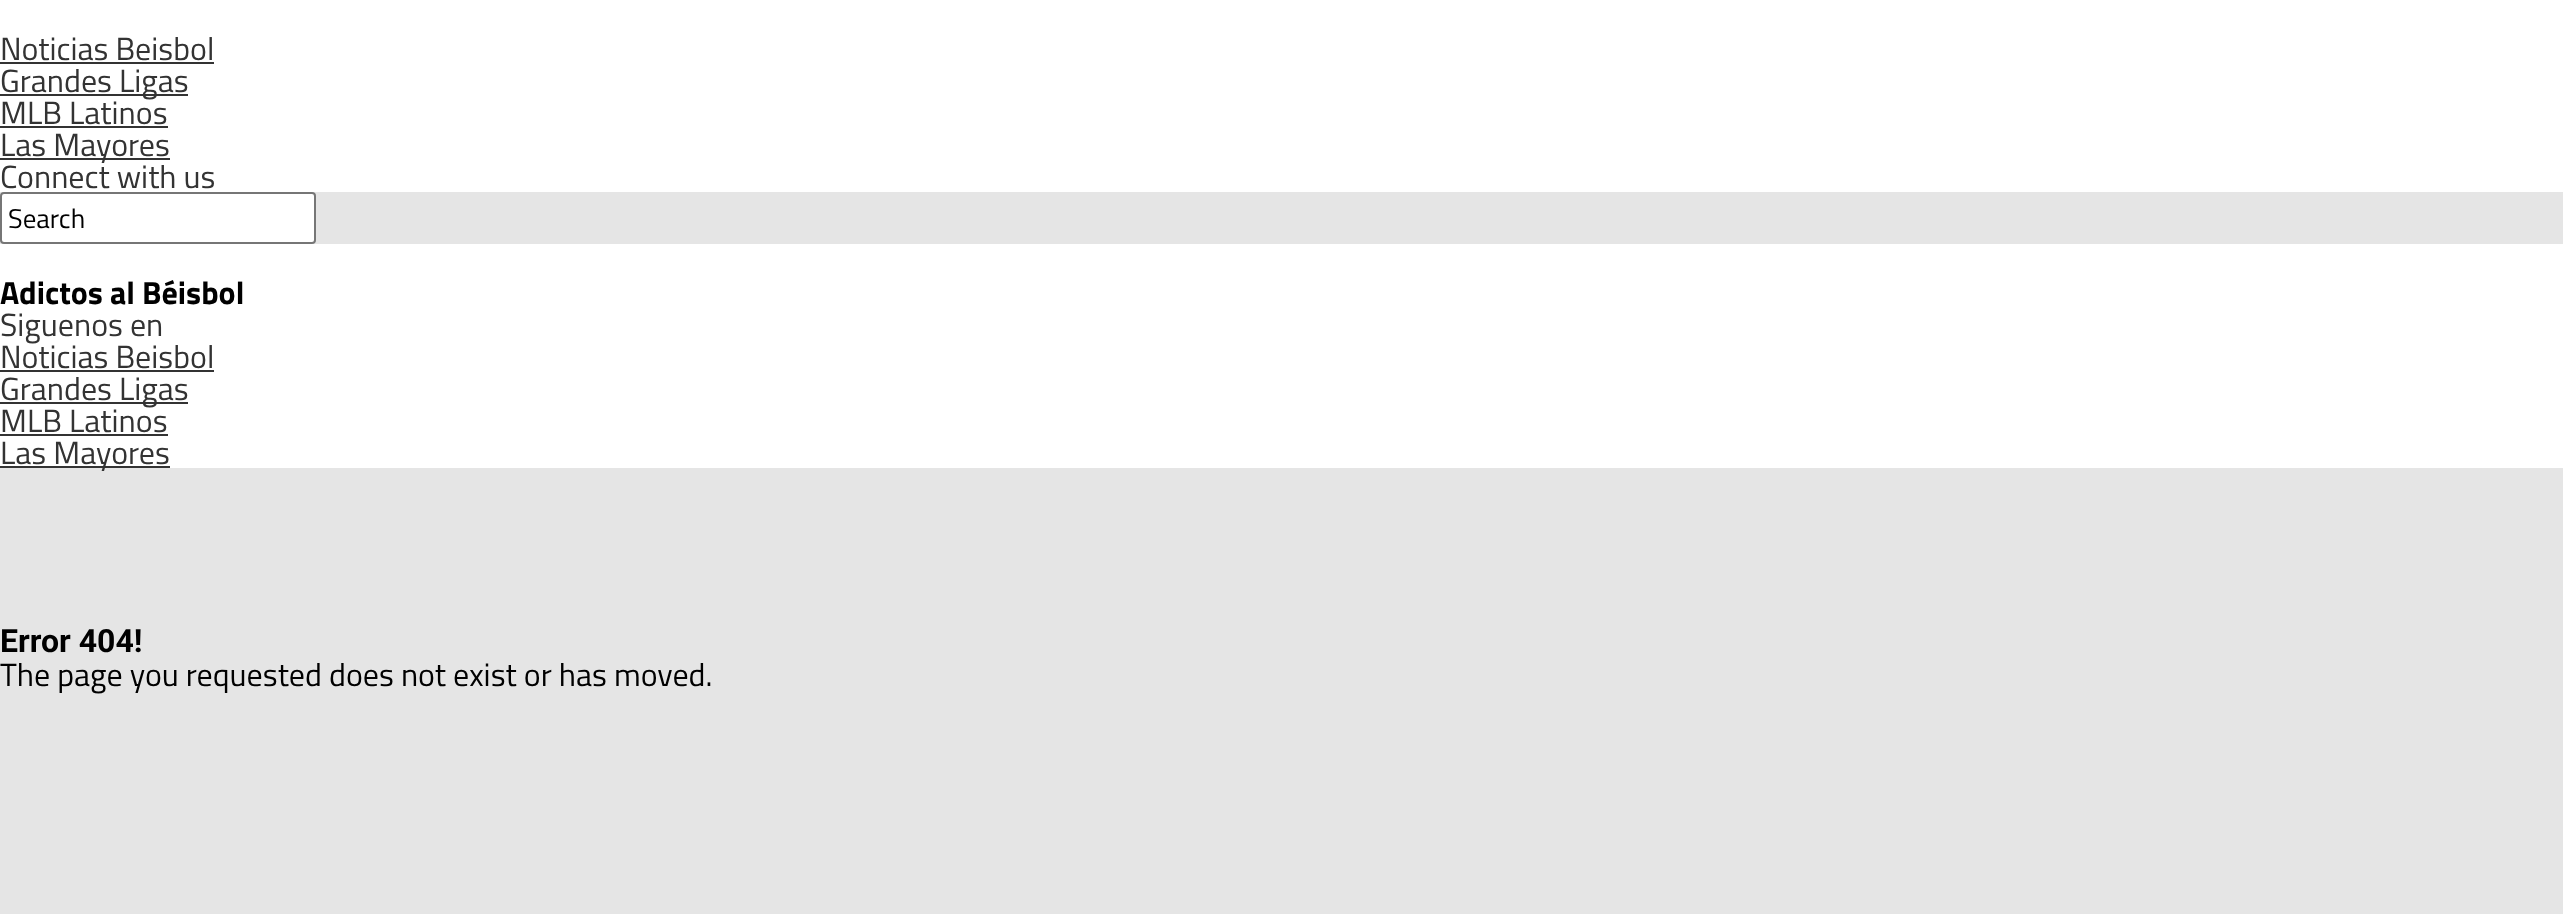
async function draw(canvas) {
  canvas.width = 2563;
  canvas.height = 914;
  const ctx = canvas.getContext('2d');
  ctx.miterLimit = 4;
  ctx.fontKerning = 'normal';
  function label(s, x, y, font, color) {
    ctx.font = font;
    ctx.fillStyle = color;
    ctx.fillText(s, x, y);
  }
  function rect(x, y, w, h, color) {
    ctx.fillStyle = color;
    ctx.fillRect(x, y, w, h);
  }

  rect(0, 0, 2563, 914, '#e5e5e5');
  rect(0, 0, 2563, 192, '#fff');
  label('Noticias Beisbol', 0, 60, '32px Titillium Web', '#333');
  rect(0, 62, 214, 2, '#333');
  rect(0, 94, 188, 2, '#333');
  label('Grandes Ligas', 0, 92, '32px Titillium Web', '#333');
  label('MLB Latinos', 0, 124, '32px Titillium Web', '#333');
  rect(0, 126, 168, 2, '#333');
  rect(0, 158, 170, 2, '#333');
  label('Las Mayores', 0, 156, '32px Titillium Web', '#333');
  label('Connect with us', 0, 188, '32px Titillium Web', '#333');
  ctx.fillStyle = '#fff';
  ctx.beginPath();
  ctx.roundRect(1, 193, 314, 50, 3);
  ctx.fill();
  ctx.strokeStyle = '#767676';
  ctx.lineWidth = 2;
  ctx.stroke();
  label('Search', 8, 228, '27px Titillium Web', '#000');
  rect(0, 244, 2563, 224, '#fff');
  label('Adictos al Béisbol', 0, 304, 'bold 32px Titillium Web', '#000');
  label('Siguenos en', 0, 336, '32px Titillium Web', '#333');
  label('Noticias Beisbol', 0, 368, '32px Titillium Web', '#333');
  rect(0, 370, 214, 2, '#333');
  rect(0, 402, 188, 2, '#333');
  label('Grandes Ligas', 0, 400, '32px Titillium Web', '#333');
  label('MLB Latinos', 0, 432, '32px Titillium Web', '#333');
  rect(0, 434, 168, 2, '#333');
  rect(0, 466, 170, 2, '#333');
  label('Las Mayores', 0, 464, '32px Titillium Web', '#333');
  label('Error 404!', 0, 652, 'bold 32px Roboto', '#000');
  label('The page you requested does not exist or has moved.', 0, 686, '32px Titillium Web', '#000');
}

draw(document.querySelector('canvas'));
